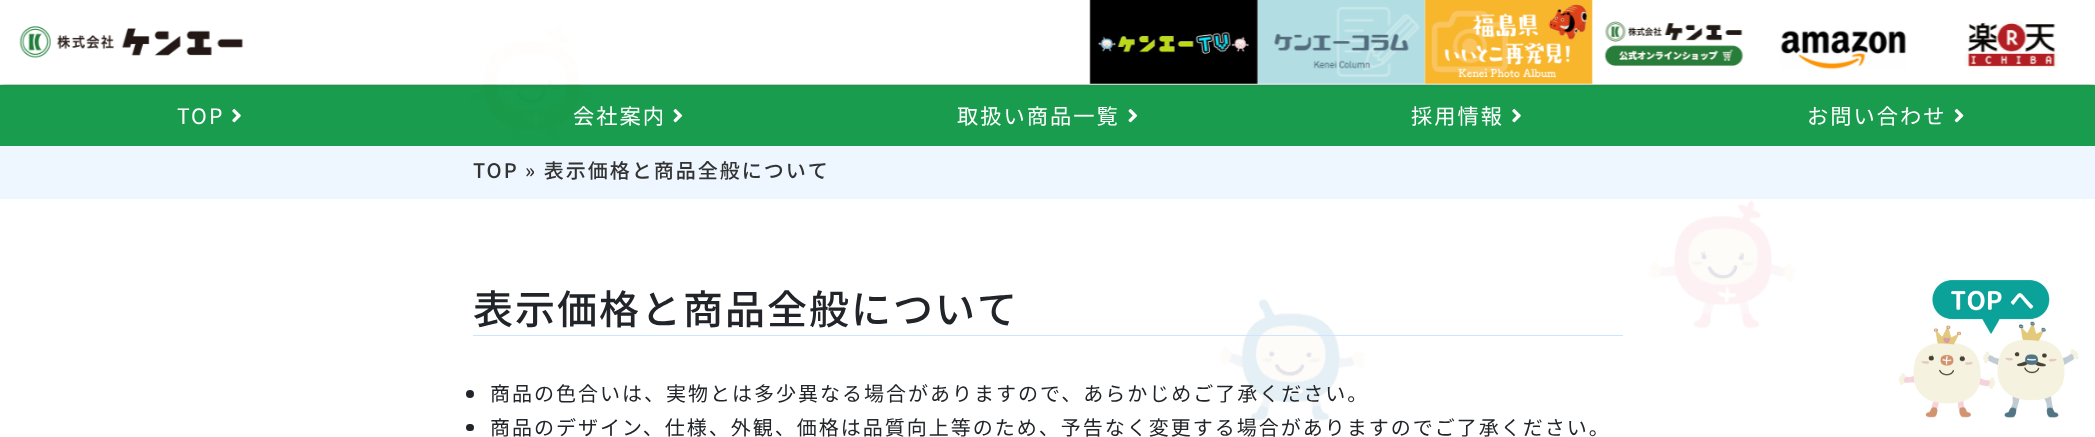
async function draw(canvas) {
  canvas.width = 2095;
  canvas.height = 437;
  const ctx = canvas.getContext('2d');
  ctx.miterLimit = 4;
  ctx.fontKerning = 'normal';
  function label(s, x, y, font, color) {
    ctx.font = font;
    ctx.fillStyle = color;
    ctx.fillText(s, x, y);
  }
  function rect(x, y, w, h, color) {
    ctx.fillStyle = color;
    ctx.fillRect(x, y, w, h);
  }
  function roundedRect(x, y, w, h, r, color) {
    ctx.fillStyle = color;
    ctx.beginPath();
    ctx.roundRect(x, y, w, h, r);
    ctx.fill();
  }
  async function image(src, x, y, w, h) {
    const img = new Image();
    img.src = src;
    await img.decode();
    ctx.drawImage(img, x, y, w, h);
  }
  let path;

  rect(0, 0, 2095, 437, '#fff');
  await image('assets/img1.png', 457, 25, 1339, 396);
  ctx.save();
  path = new Path2D('M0 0H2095V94H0ZM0 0H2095V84H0Z');
  ctx.clip(path, 'evenodd');
  ctx.fillStyle = '#898989';
  ctx.filter = 'blur(3px)';
  ctx.beginPath();
  ctx.rect(0, 0, 2095, 84);
  ctx.fill();
  ctx.filter = 'none';
  ctx.restore();
  rect(0, 25, 2095, 59, '#ffffffe6');
  await image('assets/img2.png', 19, 26, 225, 32);
  await image('assets/img3.png', 1089, 0, 169, 84);
  await image('assets/img4.png', 1258, 0, 168, 84);
  await image('assets/img5.png', 1424, 0, 169, 84);
  await image('assets/img6.png', 1592, 0, 152, 84);
  await image('assets/img7.png', 1780, 30, 127, 40);
  await image('assets/img8.png', 1964, 21, 95, 48);
  rect(0, 140, 2095, 59, '#eef7ff');
  rect(0, 85, 2095, 61, '#00913ae6');
  ctx.letterSpacing = '2px';
  label('TOP', 177, 124, '21.25px Noto Sans JP', '#fff');
  await image('assets/img9.png', 232, 109, 9, 14);
  label('会社案内', 573, 124, '21.25px Noto Sans JP', '#fff');
  await image('assets/img10.png', 673, 109, 10, 14);
  label('取扱い商品一覧', 957, 124, '21.25px Noto Sans JP', '#fff');
  await image('assets/img10.png', 1128, 109, 10, 14);
  label('採用情報', 1411, 124, '21.25px Noto Sans JP', '#fff');
  await image('assets/img9.png', 1512, 109, 9, 14);
  label('お問い合わせ', 1807, 124, '21.25px Noto Sans JP', '#fff');
  await image('assets/img11.png', 1954, 109, 10, 14);
  label('TOP » 表示価格と商品全般について', 473, 178, '500 20px Noto Sans JP', '#333');
  rect(473, 335, 1150, 1, '#cce4ff');
  label('表示価格と商品全般について', 473, 324, '500 40px Noto Sans JP', '#212529');
  ctx.beginPath();
  ctx.arc(470, 394, 4, 0, 2 * Math.PI);
  ctx.fill();
  label('商品の色合いは、実物とは多少異なる場合がありますので、あらかじめご了承ください。', 490, 401, '20px Noto Sans JP', '#212529');
  roundedRect(466, 424, 8, 7, 3.5, '#212529');
  label('商品のデザイン、仕様、外観、価格は品質向上等のため、予告なく変更する場合がありますのでご了承ください。', 490, 435, '20px Noto Sans JP', '#212529');
  await image('assets/img12.png', 1898, 280, 181, 138);
}

draw(document.querySelector('canvas'));
